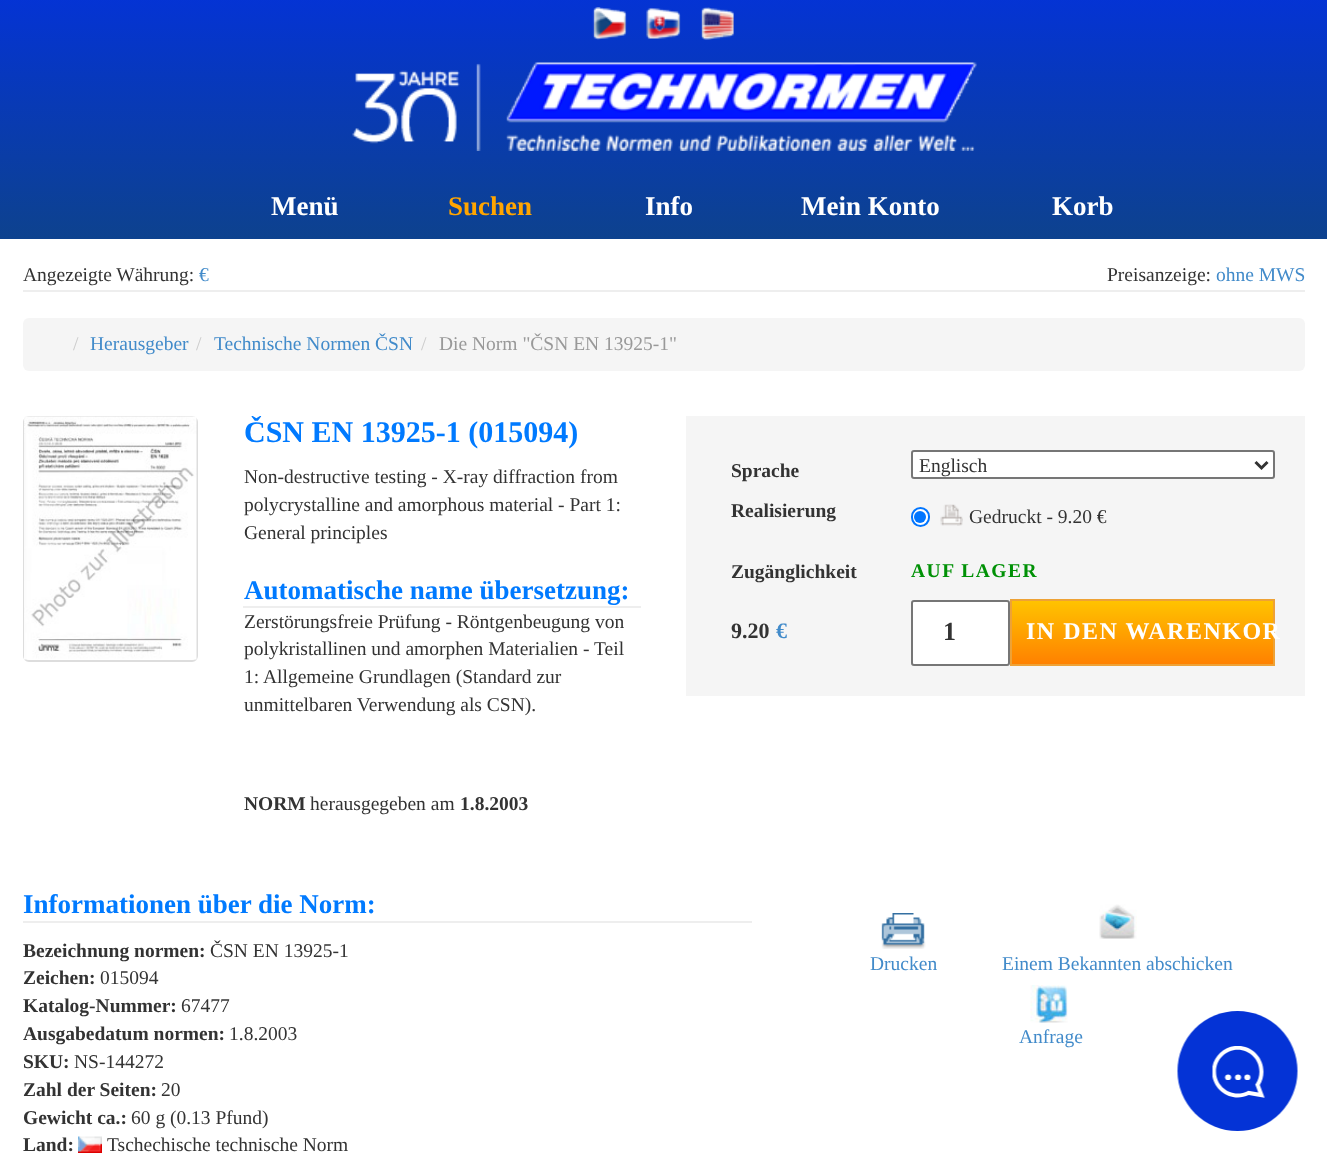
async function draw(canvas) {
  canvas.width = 1327;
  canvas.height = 1161;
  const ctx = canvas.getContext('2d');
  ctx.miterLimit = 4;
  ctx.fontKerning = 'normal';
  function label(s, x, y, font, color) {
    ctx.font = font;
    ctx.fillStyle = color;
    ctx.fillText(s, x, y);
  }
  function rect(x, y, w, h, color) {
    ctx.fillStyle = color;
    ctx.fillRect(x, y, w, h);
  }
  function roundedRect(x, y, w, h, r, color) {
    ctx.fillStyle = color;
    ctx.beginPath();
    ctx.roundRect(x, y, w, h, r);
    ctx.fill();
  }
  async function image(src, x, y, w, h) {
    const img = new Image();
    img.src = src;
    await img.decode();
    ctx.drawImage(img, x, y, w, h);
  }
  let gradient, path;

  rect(0, 0, 1327, 1161, '#fff');
  gradient = ctx.createLinearGradient(664, -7.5, 664, 239);
  gradient.addColorStop(0, '#0433d6');
  gradient.addColorStop(1, '#0d428e');
  ctx.fillStyle = gradient;
  ctx.fillRect(0, 0, 1327, 239);
  await image('assets/img1.png', 592, 7, 35, 33);
  await image('assets/img2.png', 646, 7, 35, 32);
  await image('assets/img3.png', 700, 7, 34, 33);
  await image('assets/img4.png', 352, 62, 625, 89);
  label('Menü', 271, 215, 'bold 27px Liberation Serif', '#fff');
  label('Suchen', 448, 215, 'bold 27px Liberation Serif', '#ffa500');
  label('Info', 645, 215, 'bold 27px Liberation Serif', '#fff');
  label('Mein Konto', 801, 215, 'bold 27px Liberation Serif', '#fff');
  label('Korb', 1052, 215, 'bold 27px Liberation Serif', '#fff');
  label('Angezeigte Währung:', 23, 281, '19.5px Liberation Serif', '#333');
  label('€', 199, 281, '19.5px Liberation Serif', '#428bca');
  label('Preisanzeige:', 1107, 281, '19.5px Liberation Serif', '#333');
  label('ohne MWS', 1216, 281, '19.5px Liberation Serif', '#428bca');
  rect(23, 290, 1282, 2, '#eee');
  roundedRect(23, 318, 1282, 53, 6, '#f5f5f5');
  label('/', 73, 350, '19.5px Liberation Serif', '#ccc');
  label('Herausgeber', 90, 350, '19.5px Liberation Serif', '#428bca');
  label('/', 196, 350, '19.5px Liberation Serif', '#ccc');
  label('Technische Normen ČSN', 214, 350, '19.5px Liberation Serif', '#428bca');
  label('/', 421, 350, '19.5px Liberation Serif', '#ccc');
  label('Die Norm "ČSN EN 13925-1"', 439, 350, '19.5px Liberation Serif', '#999');
  ctx.beginPath();
  ctx.roundRect(24, 417, 173, 244, 5);
  ctx.strokeStyle = '#ddd';
  ctx.lineWidth = 2;
  ctx.stroke();
  await image('assets/img5.png', 24, 416, 173, 244);
  label('ČSN EN 13925-1 (015094)', 244, 442, 'bold 30px Liberation Serif', '#007aff');
  label('Non-destructive testing - X-ray diffraction from', 244, 483, '19.5px Liberation Serif', '#333');
  label('polycrystalline and amorphous material - Part 1:', 244, 511, '19.5px Liberation Serif', '#333');
  label('General principles', 244, 539, '19.5px Liberation Serif', '#333');
  rect(243, 606, 398, 2, '#eee');
  label('Automatische name übersetzung:', 244, 599, 'bold 27px Liberation Serif', '#007aff');
  label('Zerstörungsfreie Prüfung - Röntgenbeugung von', 244, 628, '19.5px Liberation Serif', '#333');
  label('polykristallinen und amorphen Materialien - Teil', 244, 655, '19.5px Liberation Serif', '#333');
  label('1: Allgemeine Grundlagen (Standard zur', 244, 683, '19.5px Liberation Serif', '#333');
  label('unmittelbaren Verwendung als CSN).', 244, 711, '19.5px Liberation Serif', '#333');
  label('NORM', 244, 810, 'bold 19.5px Liberation Serif', '#333');
  label('herausgegeben am', 310, 810, '19.5px Liberation Serif', '#333');
  label('1.8.2003', 460, 810, 'bold 19.5px Liberation Serif', '#333');
  rect(686, 416, 619, 280, '#f5f5f5');
  label('Sprache', 731, 477, 'bold 19.5px Liberation Serif', '#333');
  ctx.fillStyle = '#fff';
  ctx.beginPath();
  ctx.roundRect(912, 451, 362, 27, 2);
  ctx.fill();
  ctx.strokeStyle = '#767676';
  ctx.stroke();
  path = new Path2D('M1255.5 462L1261.5 468L1267.5 462');
  ctx.strokeStyle = '#333';
  ctx.lineWidth = 3;
  ctx.stroke(path);
  label('Englisch', 919, 472, '19.5px Liberation Serif', '#333');
  label('Realisierung', 731, 517, 'bold 19.5px Liberation Serif', '#333');
  ctx.fillStyle = '#fff';
  ctx.beginPath();
  ctx.roundRect(912, 508, 17, 18, 8.5);
  ctx.fill();
  ctx.strokeStyle = '#0075ff';
  ctx.lineWidth = 2;
  ctx.stroke();
  ctx.fillStyle = '#0075ff';
  ctx.beginPath();
  ctx.arc(920, 517, 6, 0, 2 * Math.PI);
  ctx.fill();
  await image('assets/img6.png', 940, 504, 23, 22);
  label('Gedruckt - 9.20 €', 969, 523, '19.5px Liberation Serif', '#333');
  label('Zugänglichkeit', 731, 578, 'bold 19.5px Liberation Serif', '#333');
  ctx.letterSpacing = '1.5px';
  label('AUF LAGER', 911, 577, 'bold 19.5px Liberation Serif', '#009106');
  ctx.letterSpacing = '0px';
  label('9.20', 731, 638, 'bold 22px Liberation Serif', '#333');
  label('€', 776, 638, 'bold 22px Liberation Serif', '#428bca');
  ctx.fillStyle = '#fff';
  ctx.beginPath();
  ctx.roundRect(912, 601, 97, 64, 2);
  ctx.fill();
  ctx.strokeStyle = '#767676';
  ctx.stroke();
  label('1', 943, 640, 'bold 26px Liberation Serif', '#333');
  gradient = ctx.createLinearGradient(1142, 600, 1142, 665);
  gradient.addColorStop(0, '#ffc400');
  gradient.addColorStop(1, '#ff8000');
  ctx.fillStyle = gradient;
  ctx.fillRect(1012, 601, 261, 63);
  ctx.strokeStyle = '#eea236';
  ctx.strokeRect(1011, 600, 263, 65);
  ctx.letterSpacing = '1.5px';
  label('IN DEN WARENKOR', 1026, 639, 'bold 24px Liberation Serif', '#fff');
  rect(23, 921, 729, 2, '#eee');
  ctx.letterSpacing = '0px';
  label('Informationen über die Norm:', 23, 913, 'bold 27px Liberation Serif', '#007aff');
  label('Bezeichnung normen:', 23, 957, 'bold 19.5px Liberation Serif', '#333');
  label('ČSN EN 13925-1', 210, 957, '19.5px Liberation Serif', '#333');
  label('Zeichen:', 23, 984, 'bold 19.5px Liberation Serif', '#333');
  label('015094', 100, 984, '19.5px Liberation Serif', '#333');
  label('Katalog-Nummer:', 23, 1012, 'bold 19.5px Liberation Serif', '#333');
  label('67477', 181, 1012, '19.5px Liberation Serif', '#333');
  label('Ausgabedatum normen:', 23, 1040, 'bold 19.5px Liberation Serif', '#333');
  label('1.8.2003', 229, 1040, '19.5px Liberation Serif', '#333');
  label('SKU:', 23, 1068, 'bold 19.5px Liberation Serif', '#333');
  label('NS-144272', 74, 1068, '19.5px Liberation Serif', '#333');
  label('Zahl der Seiten:', 23, 1096, 'bold 19.5px Liberation Serif', '#333');
  label('20', 161, 1096, '19.5px Liberation Serif', '#333');
  label('Gewicht ca.:', 23, 1124, 'bold 19.5px Liberation Serif', '#333');
  label('60 g (0.13 Pfund)', 131, 1124, '19.5px Liberation Serif', '#333');
  label('Land:', 23, 1151, 'bold 19.5px Liberation Serif', '#333');
  await image('assets/img7.png', 78, 1136, 24, 17);
  label('Tschechische technische Norm', 107, 1151, '19.5px Liberation Serif', '#333');
  await image('assets/img8.png', 881, 913, 45, 36);
  label('Drucken', 870, 970, '19.5px Liberation Serif', '#428bca');
  await image('assets/img9.png', 1099, 904, 38, 35);
  label('Einem Bekannten abschicken', 1002, 970, '19.5px Liberation Serif', '#428bca');
  await image('assets/img10.png', 1030, 985, 38, 38);
  label('Anfrage', 1019, 1043, '19.5px Liberation Serif', '#428bca');
  await image('assets/img11.png', 1177, 1011, 121, 120);
}

draw(document.querySelector('canvas'));
